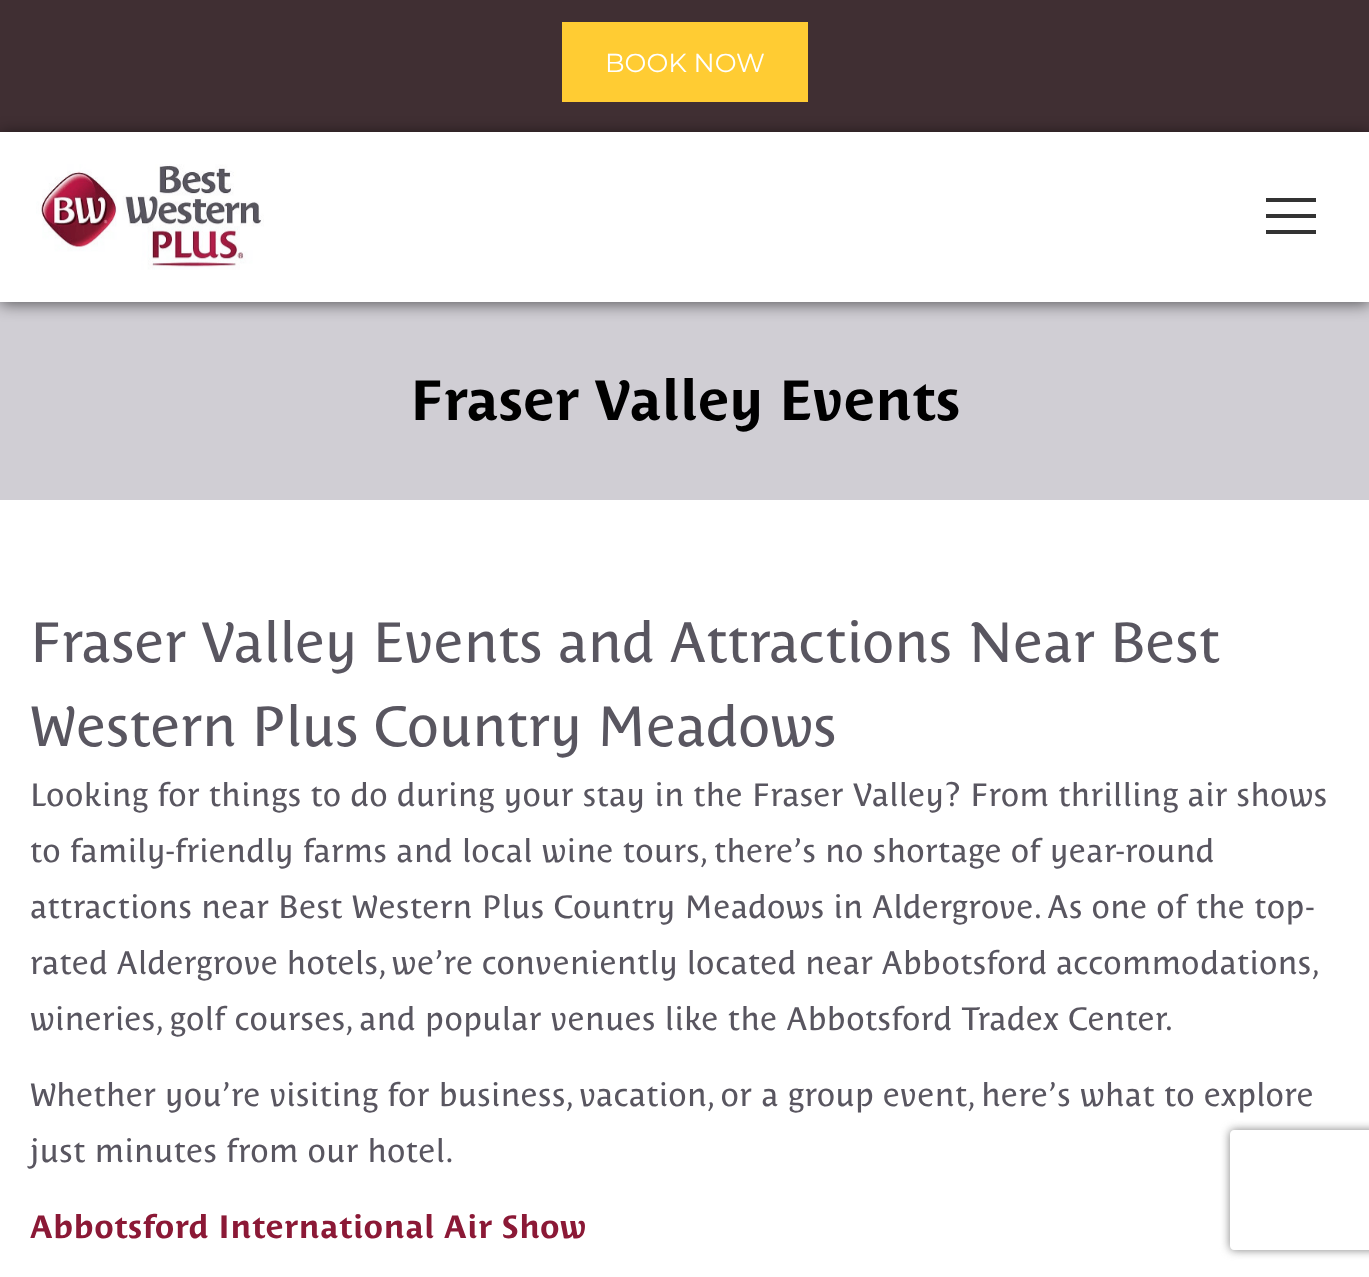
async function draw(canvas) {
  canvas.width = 1369;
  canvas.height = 1277;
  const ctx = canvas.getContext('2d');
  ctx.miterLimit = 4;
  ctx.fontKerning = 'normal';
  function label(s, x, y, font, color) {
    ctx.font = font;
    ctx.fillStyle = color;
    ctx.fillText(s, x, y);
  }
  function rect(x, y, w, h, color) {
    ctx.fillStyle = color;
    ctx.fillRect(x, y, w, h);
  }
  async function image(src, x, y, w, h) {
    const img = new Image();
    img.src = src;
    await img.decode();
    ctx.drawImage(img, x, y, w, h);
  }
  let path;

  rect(0, 0, 1369, 1277, '#d0ced4');
  rect(0, 0, 1369, 132, '#402f33');
  rect(562, 22, 246, 80, '#fc3');
  label('BOOK NOW', 605, 72, '26px Montserrat', '#fff');
  ctx.fillStyle = '#00000094';
  ctx.filter = 'blur(8px)';
  ctx.beginPath();
  ctx.rect(0, 134, 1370, 170);
  ctx.fill();
  ctx.filter = 'none';
  rect(0, 132, 1369, 170, '#fff');
  await image('assets/img1.png', 36, 164, 228, 106);
  rect(1266, 214, 50, 4, '#333');
  rect(1266, 198, 50, 4, '#333');
  rect(1266, 230, 50, 4, '#333');
  ctx.letterSpacing = '0.4px';
  label('Fraser Valley Events', 410, 420, 'bold 56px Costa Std', '#000');
  rect(0, 500, 1369, 777, '#fff');
  label('Fraser Valley Events and Attractions Near Best', 30, 662, '56px Costa Std', '#595660');
  label('Western Plus Country Meadows', 30, 746, '56px Costa Std', '#595660');
  ctx.letterSpacing = '0.65px';
  label('Looking for things to do during your stay in the Fraser Valley? From thrilling air shows', 30, 806, '32px Costa Std', '#595660');
  label('to family-friendly farms and local wine tours, there’s no shortage of year-round', 30, 862, '32px Costa Std', '#595660');
  label('attractions near Best Western Plus Country Meadows in Aldergrove. As one of the top-', 30, 918, '32px Costa Std', '#595660');
  ctx.wordSpacing = '-0.5px';
  label('rated Aldergrove hotels, we’re conveniently located near Abbotsford accommodations,', 30, 974, '32px Costa Std', '#595660');
  ctx.wordSpacing = '0px';
  label('wineries, golf courses, and popular venues like the Abbotsford Tradex Center.', 30, 1030, '32px Costa Std', '#595660');
  label('Whether you’re visiting for business, vacation, or a group event, here’s what to explore', 30, 1106, '32px Costa Std', '#595660');
  label('just minutes from our hotel.', 30, 1162, '32px Costa Std', '#595660');
  label('Abbotsford International Air Show', 30, 1238, 'bold 32px Costa Std', '#8b1936');
  ctx.save();
  path = new Path2D('M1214 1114H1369V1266H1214ZM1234 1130H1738C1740 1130 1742 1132 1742 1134V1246C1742 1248 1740 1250 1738 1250H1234C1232 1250 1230 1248 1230 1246V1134C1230 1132 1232 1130 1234 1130Z');
  ctx.clip(path, 'evenodd');
  ctx.fillStyle = '#808080';
  ctx.filter = 'blur(5px)';
  ctx.beginPath();
  ctx.roundRect(1230, 1130, 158, 120, 4);
  ctx.fill();
  ctx.filter = 'none';
  ctx.restore();
}

draw(document.querySelector('canvas'));
